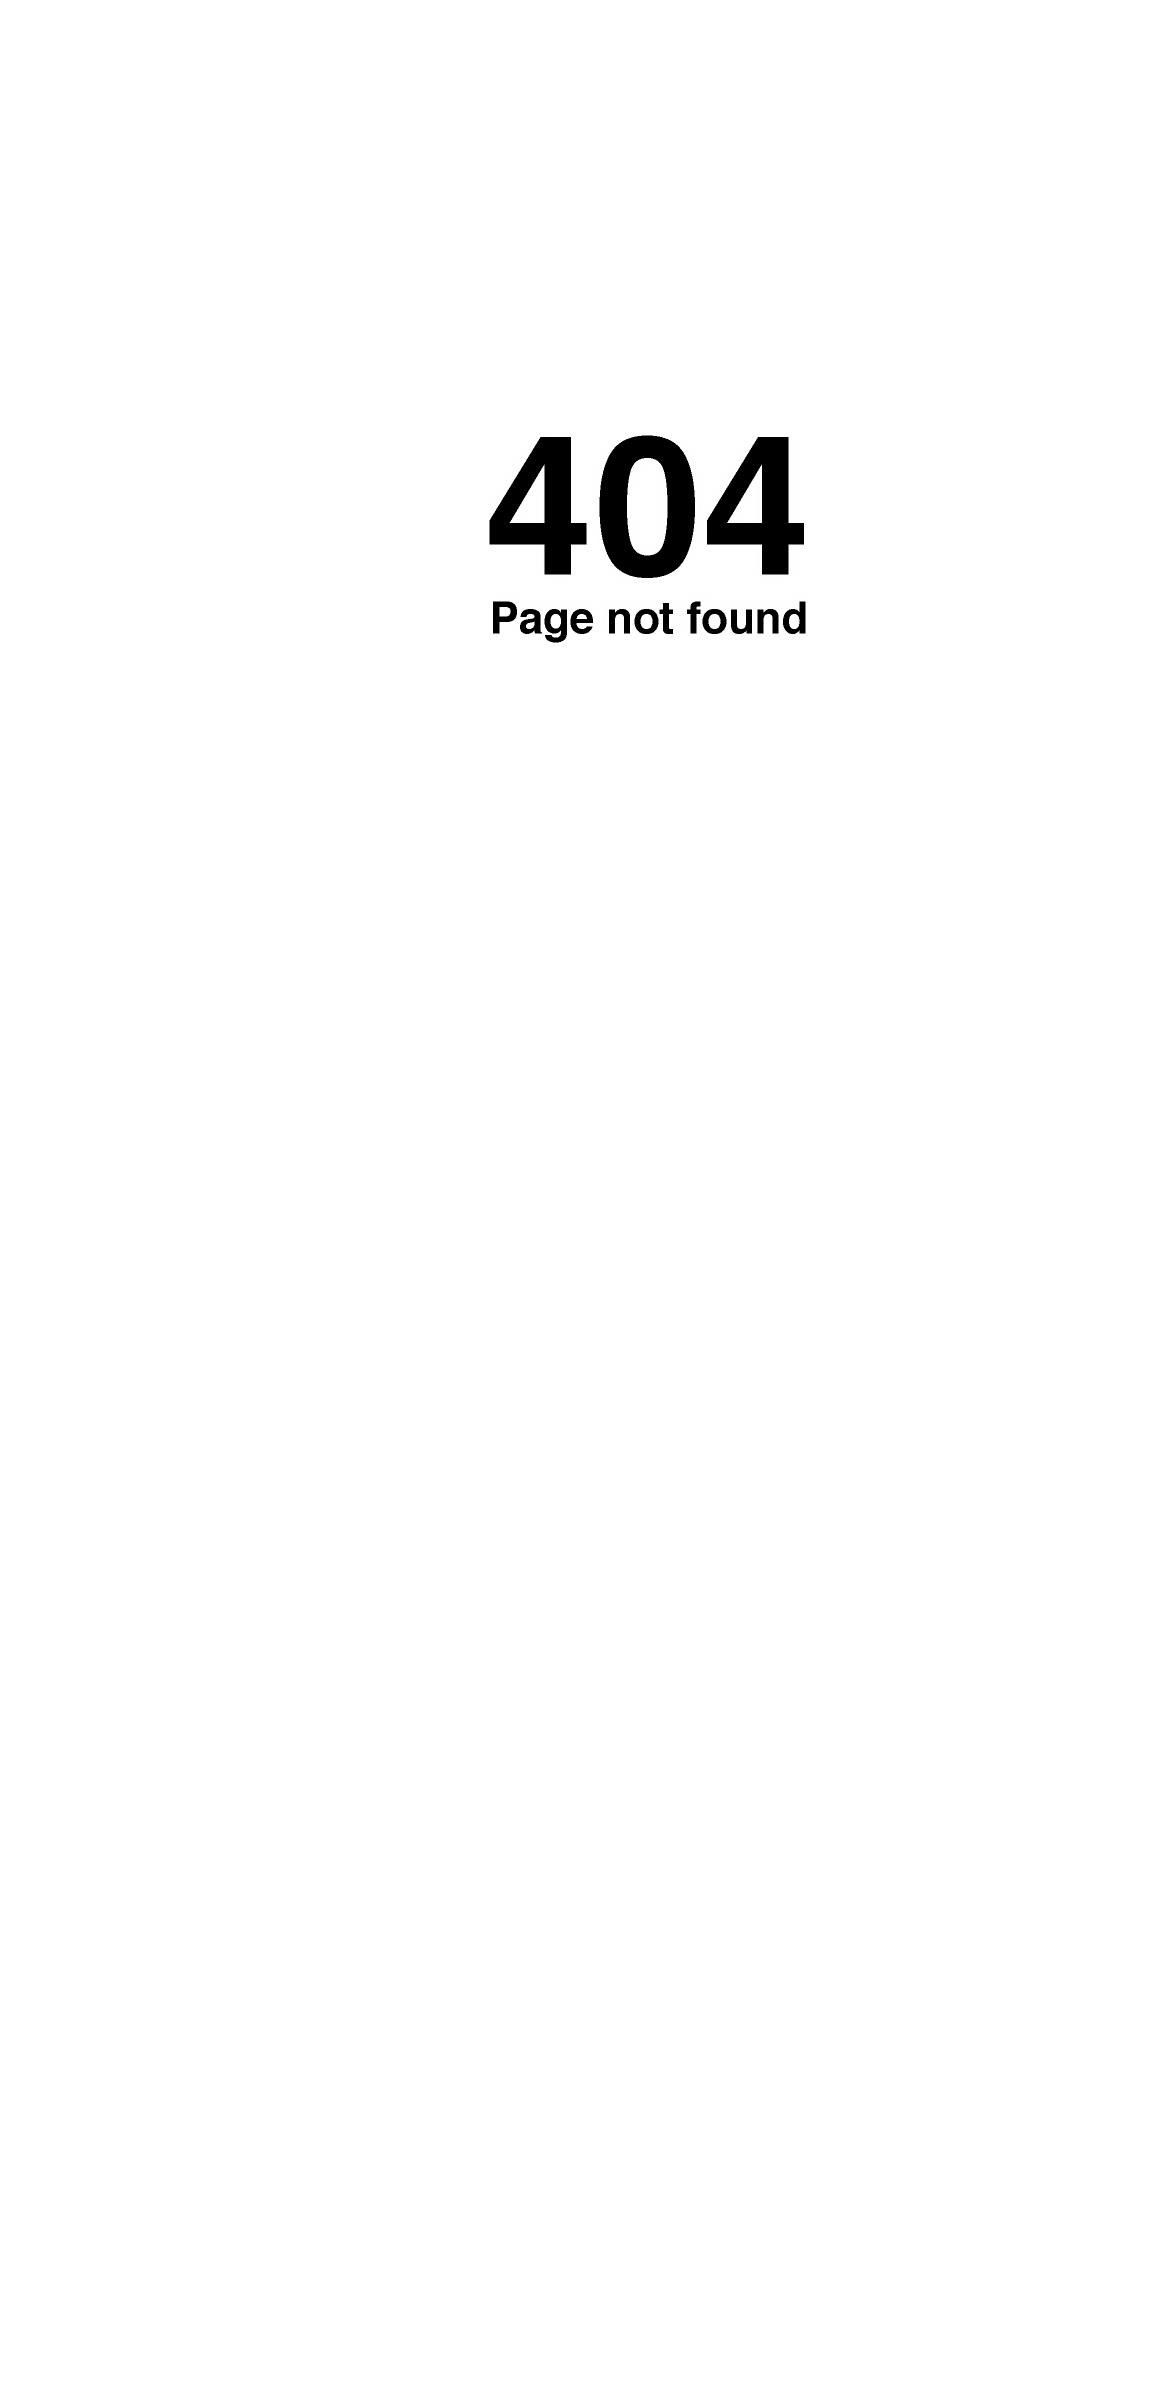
async function draw(canvas) {
  canvas.width = 1174;
  canvas.height = 2396;
  const ctx = canvas.getContext('2d');
  ctx.miterLimit = 4;
  ctx.fontKerning = 'normal';
  function rect(x, y, w, h, color) {
    ctx.fillStyle = color;
    ctx.fillRect(x, y, w, h);
  }
  async function image(src, x, y, w, h) {
    const img = new Image();
    img.src = src;
    await img.decode();
    ctx.drawImage(img, x, y, w, h);
  }

  rect(0, 0, 1174, 2396, '#fff');
  await image('assets/img1.png', 489, 435, 317, 208);
}

draw(document.querySelector('canvas'));
